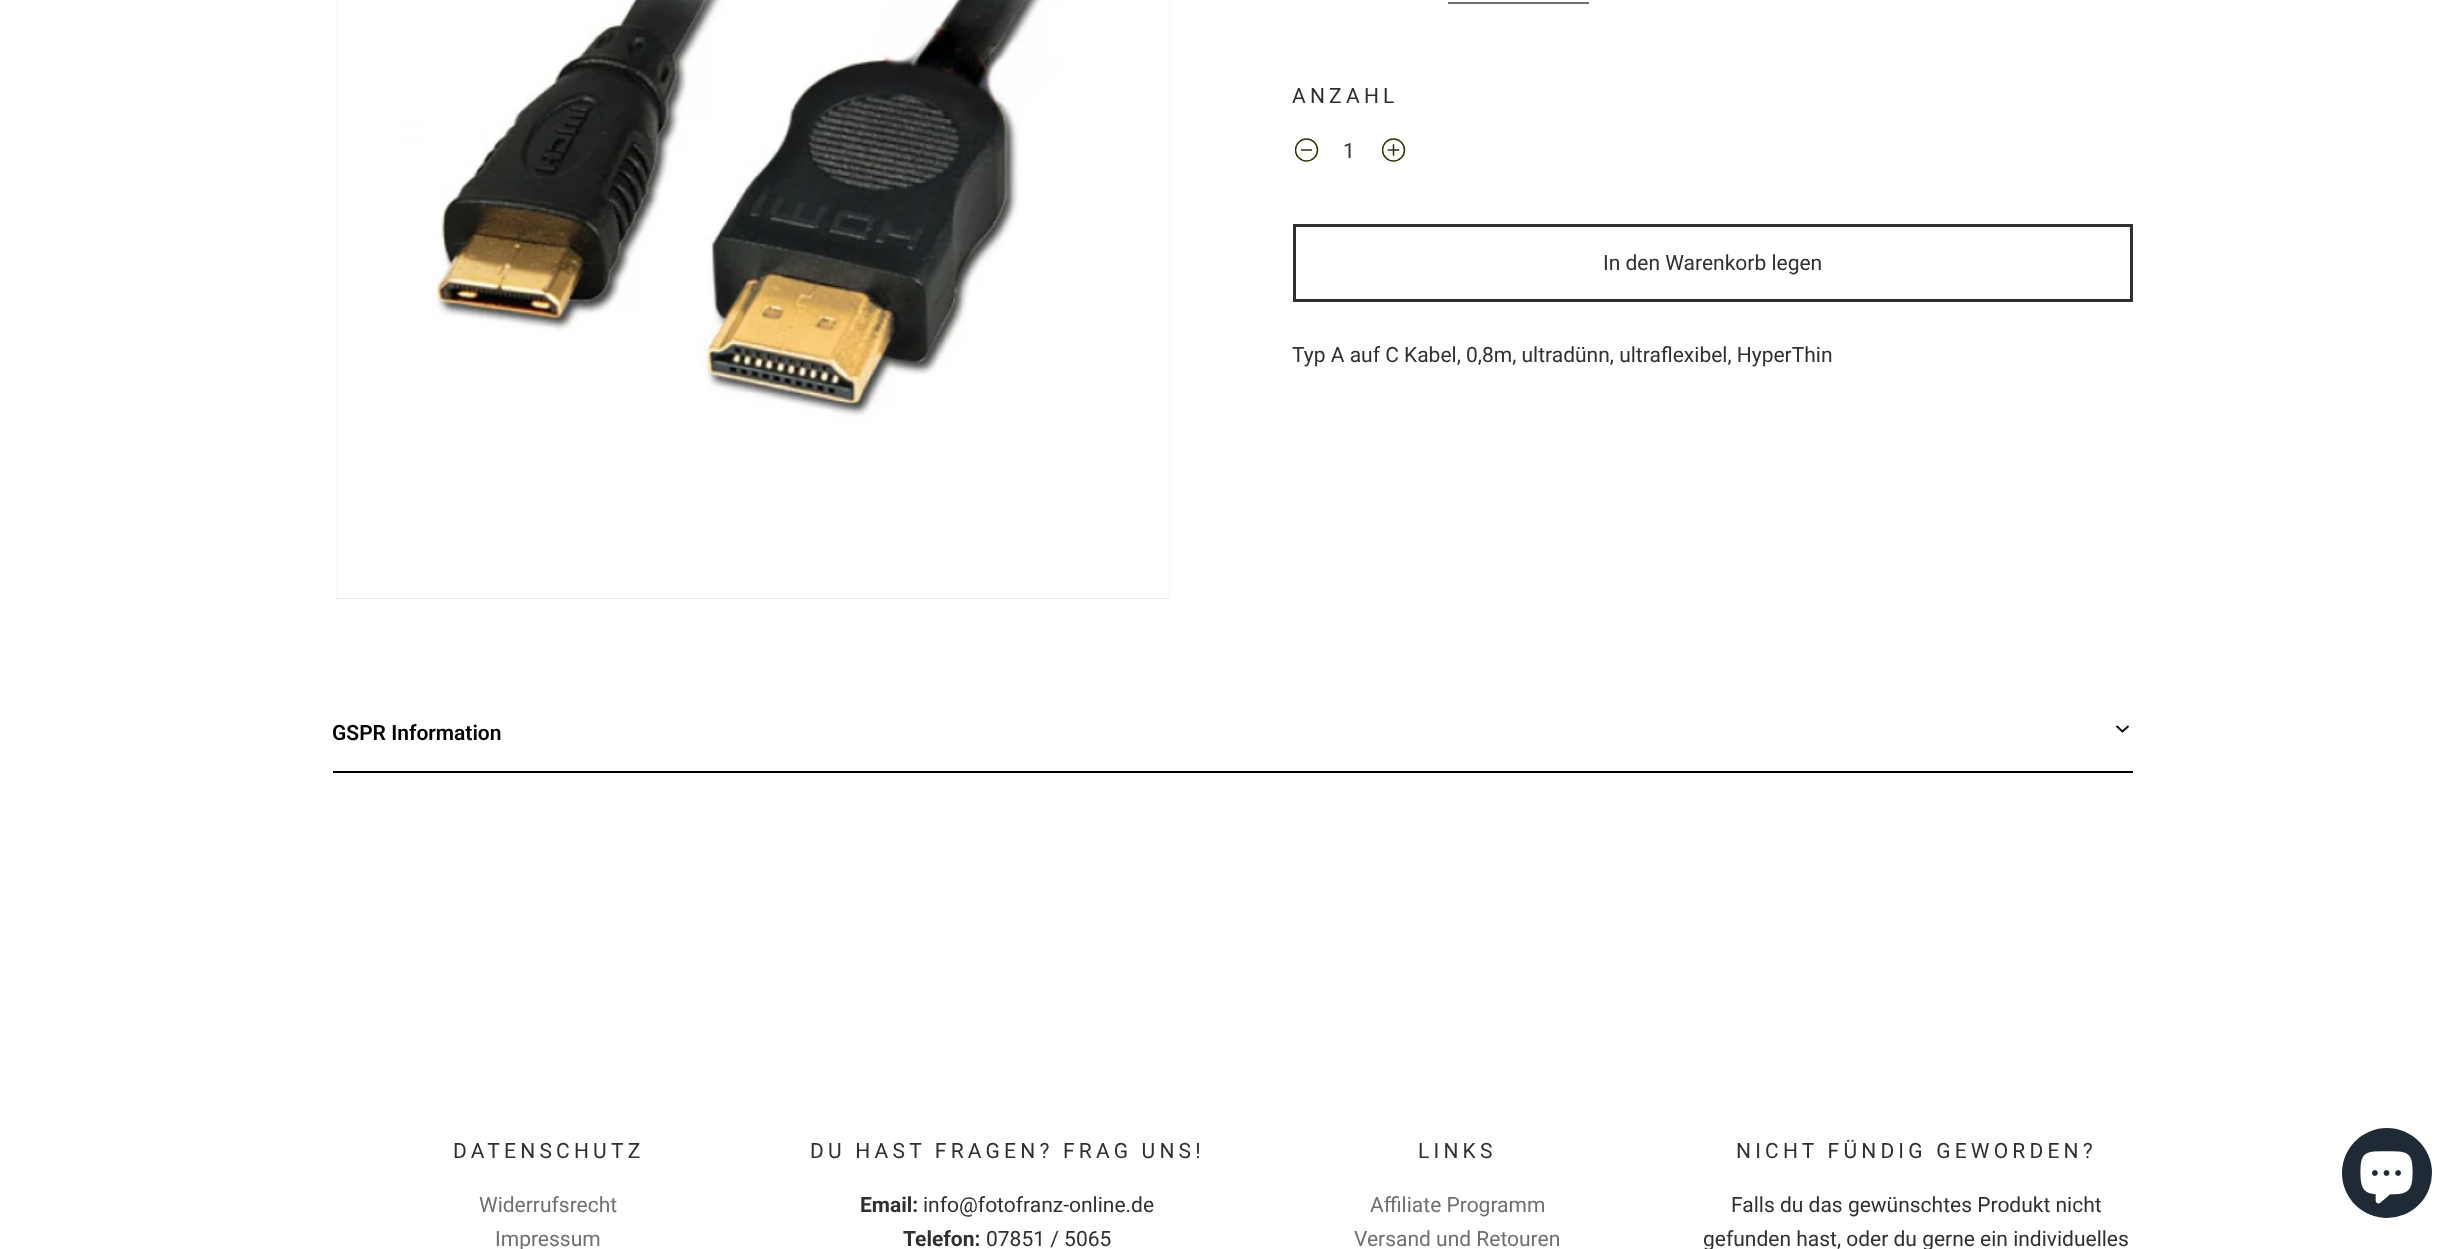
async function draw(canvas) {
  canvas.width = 2464;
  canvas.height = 1249;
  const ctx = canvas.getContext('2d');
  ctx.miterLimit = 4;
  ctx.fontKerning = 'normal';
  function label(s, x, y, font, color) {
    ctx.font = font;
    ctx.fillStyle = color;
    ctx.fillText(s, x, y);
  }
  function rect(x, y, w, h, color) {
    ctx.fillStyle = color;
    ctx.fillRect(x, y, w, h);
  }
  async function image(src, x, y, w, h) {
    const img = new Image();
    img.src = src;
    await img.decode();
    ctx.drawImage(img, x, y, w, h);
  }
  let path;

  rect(0, 0, 2464, 1249, '#fff');
  rect(336, 0, 834, 599, '#d6d6d6');
  await image('assets/img1.png', 336, 0, 834, 599);
  rect(1448, 2, 141, 2, '#6f6f6f');
  ctx.letterSpacing = '4.2px';
  label('ANZAHL', 1292, 103, '21px Roboto', '#303030');
  ctx.save();
  ctx.beginPath();
  ctx.rect(1295, 138, 24, 24);
  ctx.clip();
  ctx.beginPath();
  ctx.arc(1306.5, 150, 11, 0, 2 * Math.PI);
  ctx.strokeStyle = '#330';
  ctx.lineWidth = 1.5;
  ctx.stroke();
  ctx.restore();
  rect(1301, 149, 11, 2, '#666640');
  ctx.letterSpacing = '0px';
  label('1', 1343, 158, '21px Roboto', '#303030');
  ctx.save();
  ctx.beginPath();
  ctx.rect(1382, 138, 24, 24);
  ctx.clip();
  ctx.beginPath();
  ctx.arc(1393.5, 150, 11, 0, 2 * Math.PI);
  ctx.strokeStyle = '#330';
  ctx.lineWidth = 1.5;
  ctx.stroke();
  ctx.restore();
  path = new Path2D('M1388.5 150H1398.5M1393.5 145V155');
  ctx.strokeStyle = '#330';
  ctx.lineWidth = 1.5;
  ctx.lineCap = 'square';
  ctx.stroke(path);
  ctx.strokeStyle = '#303030';
  ctx.lineWidth = 3;
  ctx.strokeRect(1294.5, 225.5, 837, 75);
  label('In den Warenkorb legen', 1603, 270, '21px Roboto', '#303030');
  label('Typ A auf C Kabel, 0,8m, ultradünn, ultraflexibel, HyperThin', 1292, 362, '21px Roboto', '#303030');
  rect(333, 771, 1800, 2, '#000');
  label('GSPR Information', 332, 740, '600 21px Roboto', '#000');
  path = new Path2D('M2117 726.5L2122.5 731.5L2128 726.5');
  ctx.strokeStyle = '#000';
  ctx.lineWidth = 1.8;
  ctx.lineCap = 'round';
  ctx.lineJoin = 'round';
  ctx.stroke(path);
  ctx.letterSpacing = '4.2px';
  label('DATENSCHUTZ', 453, 1158, '21px Roboto', '#303030');
  ctx.letterSpacing = '0px';
  label('Widerrufsrecht', 479, 1212, '21px Roboto', '#6f6f6f');
  label('Impressum', 495, 1246, '21px Roboto', '#6f6f6f');
  ctx.letterSpacing = '4.2px';
  label('DU HAST FRAGEN? FRAG UNS!', 810, 1158, '21px Roboto', '#303030');
  ctx.letterSpacing = '0px';
  label('Email:', 860, 1212, 'bold 21px Roboto', '#303030');
  label('info@fotofranz-online.de', 923, 1212, '21px Roboto', '#303030');
  label('Telefon:', 903, 1246, 'bold 21px Roboto', '#303030');
  label('07851 / 5065', 986, 1246, '21px Roboto', '#303030');
  ctx.letterSpacing = '4.2px';
  label('LINKS', 1418, 1158, '21px Roboto', '#303030');
  ctx.letterSpacing = '0px';
  label('Affiliate Programm', 1370, 1212, '21px Roboto', '#6f6f6f');
  label('Versand und Retouren', 1354, 1246, '21px Roboto', '#6f6f6f');
  ctx.letterSpacing = '4.2px';
  label('NICHT FÜNDIG GEWORDEN?', 1736, 1158, '21px Roboto', '#303030');
  ctx.letterSpacing = '0px';
  label('Falls du das gewünschtes Produkt nicht', 1731, 1212, '21px Roboto', '#303030');
  label('gefunden hast, oder du gerne ein individuelles', 1703, 1246, '21px Roboto', '#303030');
  ctx.fillStyle = '#202a36';
  ctx.beginPath();
  ctx.arc(2387, 1173, 45, 0, 2 * Math.PI);
  ctx.fill();
  await image('assets/img2.png', 2360, 1151, 53, 53);
}

draw(document.querySelector('canvas'));
